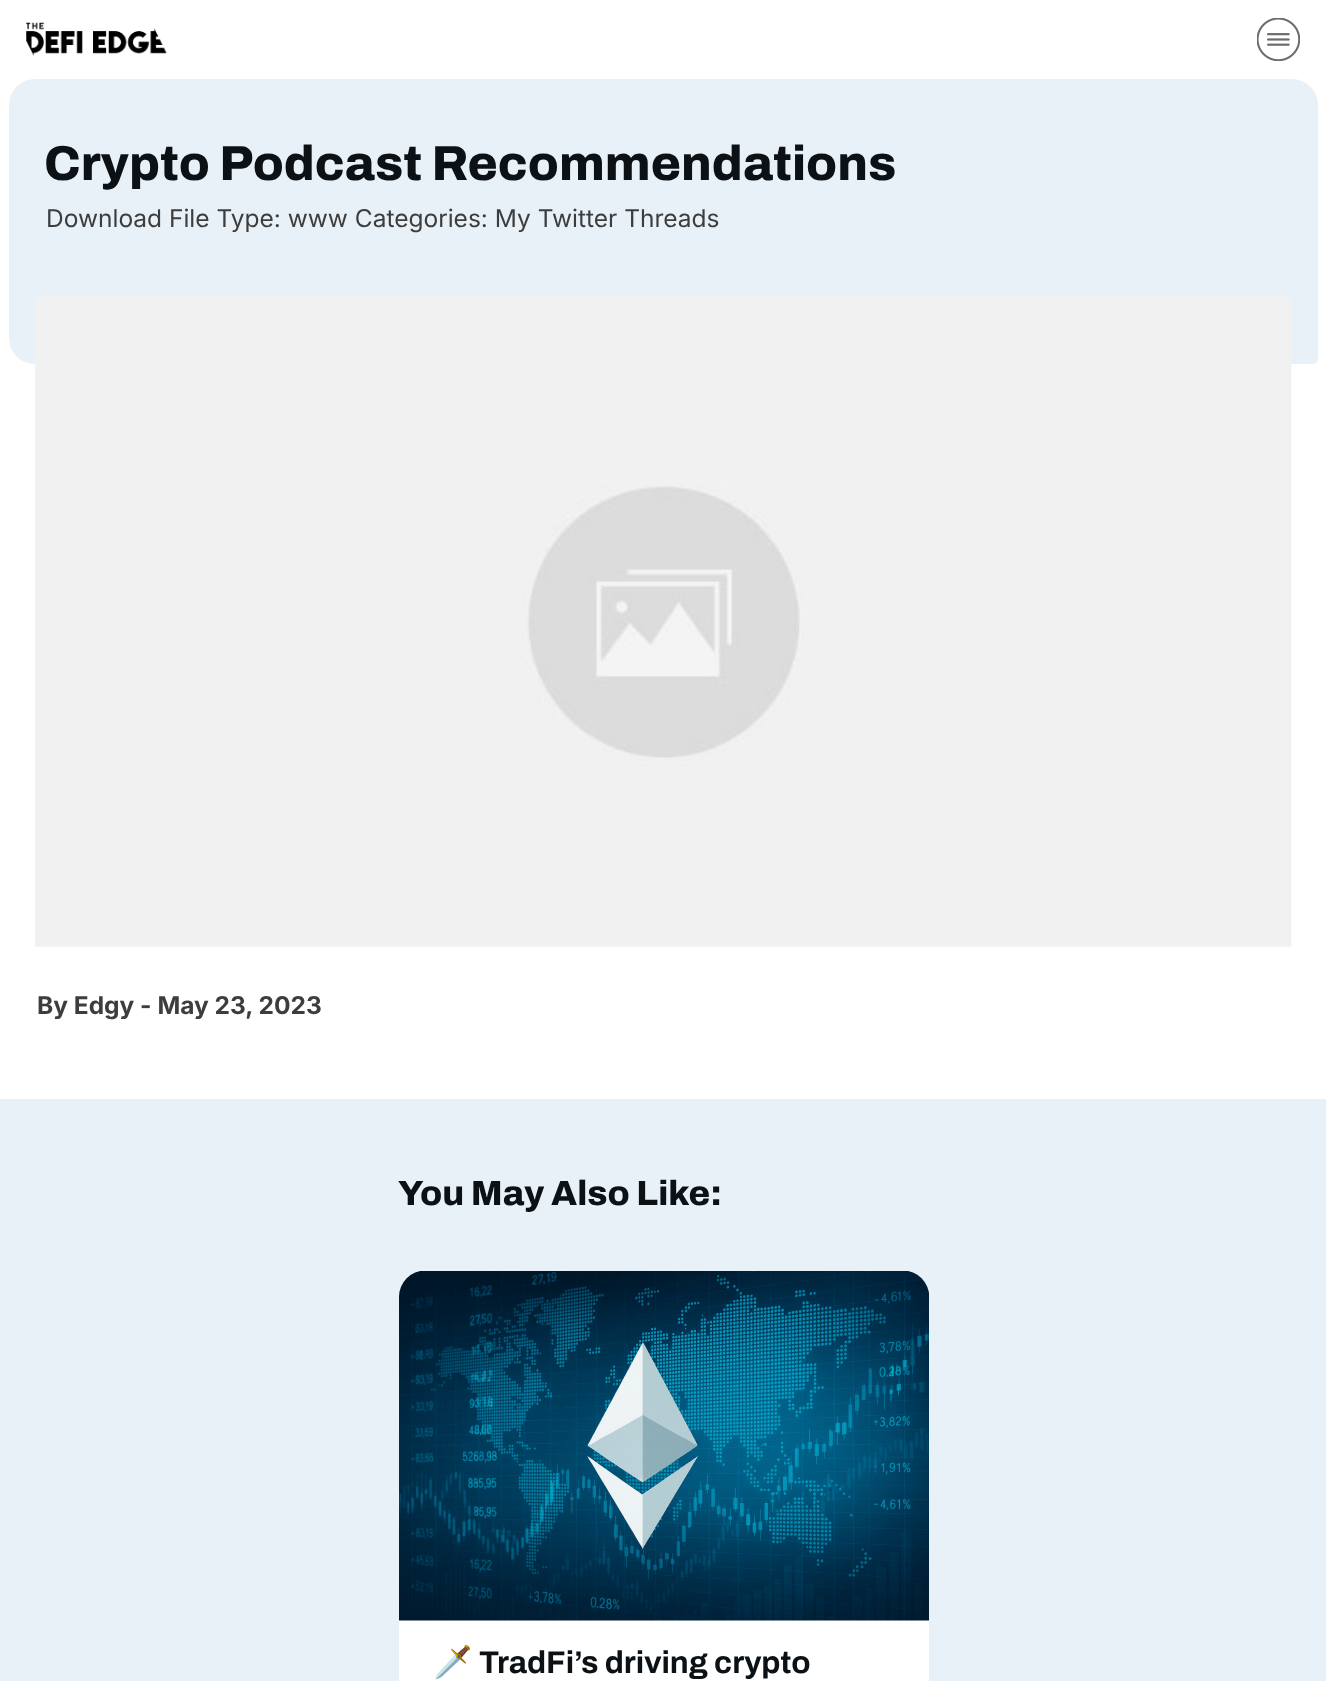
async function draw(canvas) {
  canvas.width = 1326;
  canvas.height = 1681;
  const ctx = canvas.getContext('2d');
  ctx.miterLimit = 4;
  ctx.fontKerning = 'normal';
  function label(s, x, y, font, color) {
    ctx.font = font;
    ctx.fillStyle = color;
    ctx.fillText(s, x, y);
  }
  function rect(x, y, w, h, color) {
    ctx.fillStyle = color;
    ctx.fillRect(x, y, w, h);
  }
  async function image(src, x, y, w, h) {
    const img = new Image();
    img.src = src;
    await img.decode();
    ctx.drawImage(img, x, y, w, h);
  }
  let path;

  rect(0, 0, 1326, 1681, '#fff');
  await image('assets/img1.png', 26, 22, 141, 34);
  await image('assets/img2.png', 1257, 18, 43, 43);
  ctx.fillStyle = '#e9f1f8';
  ctx.beginPath();
  ctx.roundRect(9, 79, 1309, 285, [26, 26, 5, 26]);
  ctx.fill();
  label('Crypto Podcast Recommendations', 44, 180, '800 49px Archivo', '#0c1115');
  label('Download File Type: www Categories: My Twitter Threads', 46, 227, '24.5px Inter', '#3d3d3d');
  await image('assets/img3.png', 35, 296, 1257, 651);
  label('By Edgy - May 23, 2023', 37, 1014, 'bold 24.5px Inter', '#3d3d3d');
  rect(0, 1099, 1326, 582, '#e9f1f8');
  label('You May Also Like:', 398, 1205, '800 35px Archivo', '#0c1115');
  ctx.fillStyle = '#fff';
  path = new Path2D('M425 1271H903C917.5 1271 929 1282.5 929 1297V1681C929 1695.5 917.5 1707 903 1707H403C401 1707 399 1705 399 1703V1297C399 1282.5 410.5 1271 425 1271Z');
  ctx.fill(path);
  await image('assets/img4.png', 399, 1271, 530, 350);
  label('🗡️', 433, 1673, 'bold 31.5px Noto Color Emoji', '#0c1115');
  label('TradFi’s driving crypto', 479, 1673, 'bold 31.5px Archivo', '#0c1115');
}

draw(document.querySelector('canvas'));
